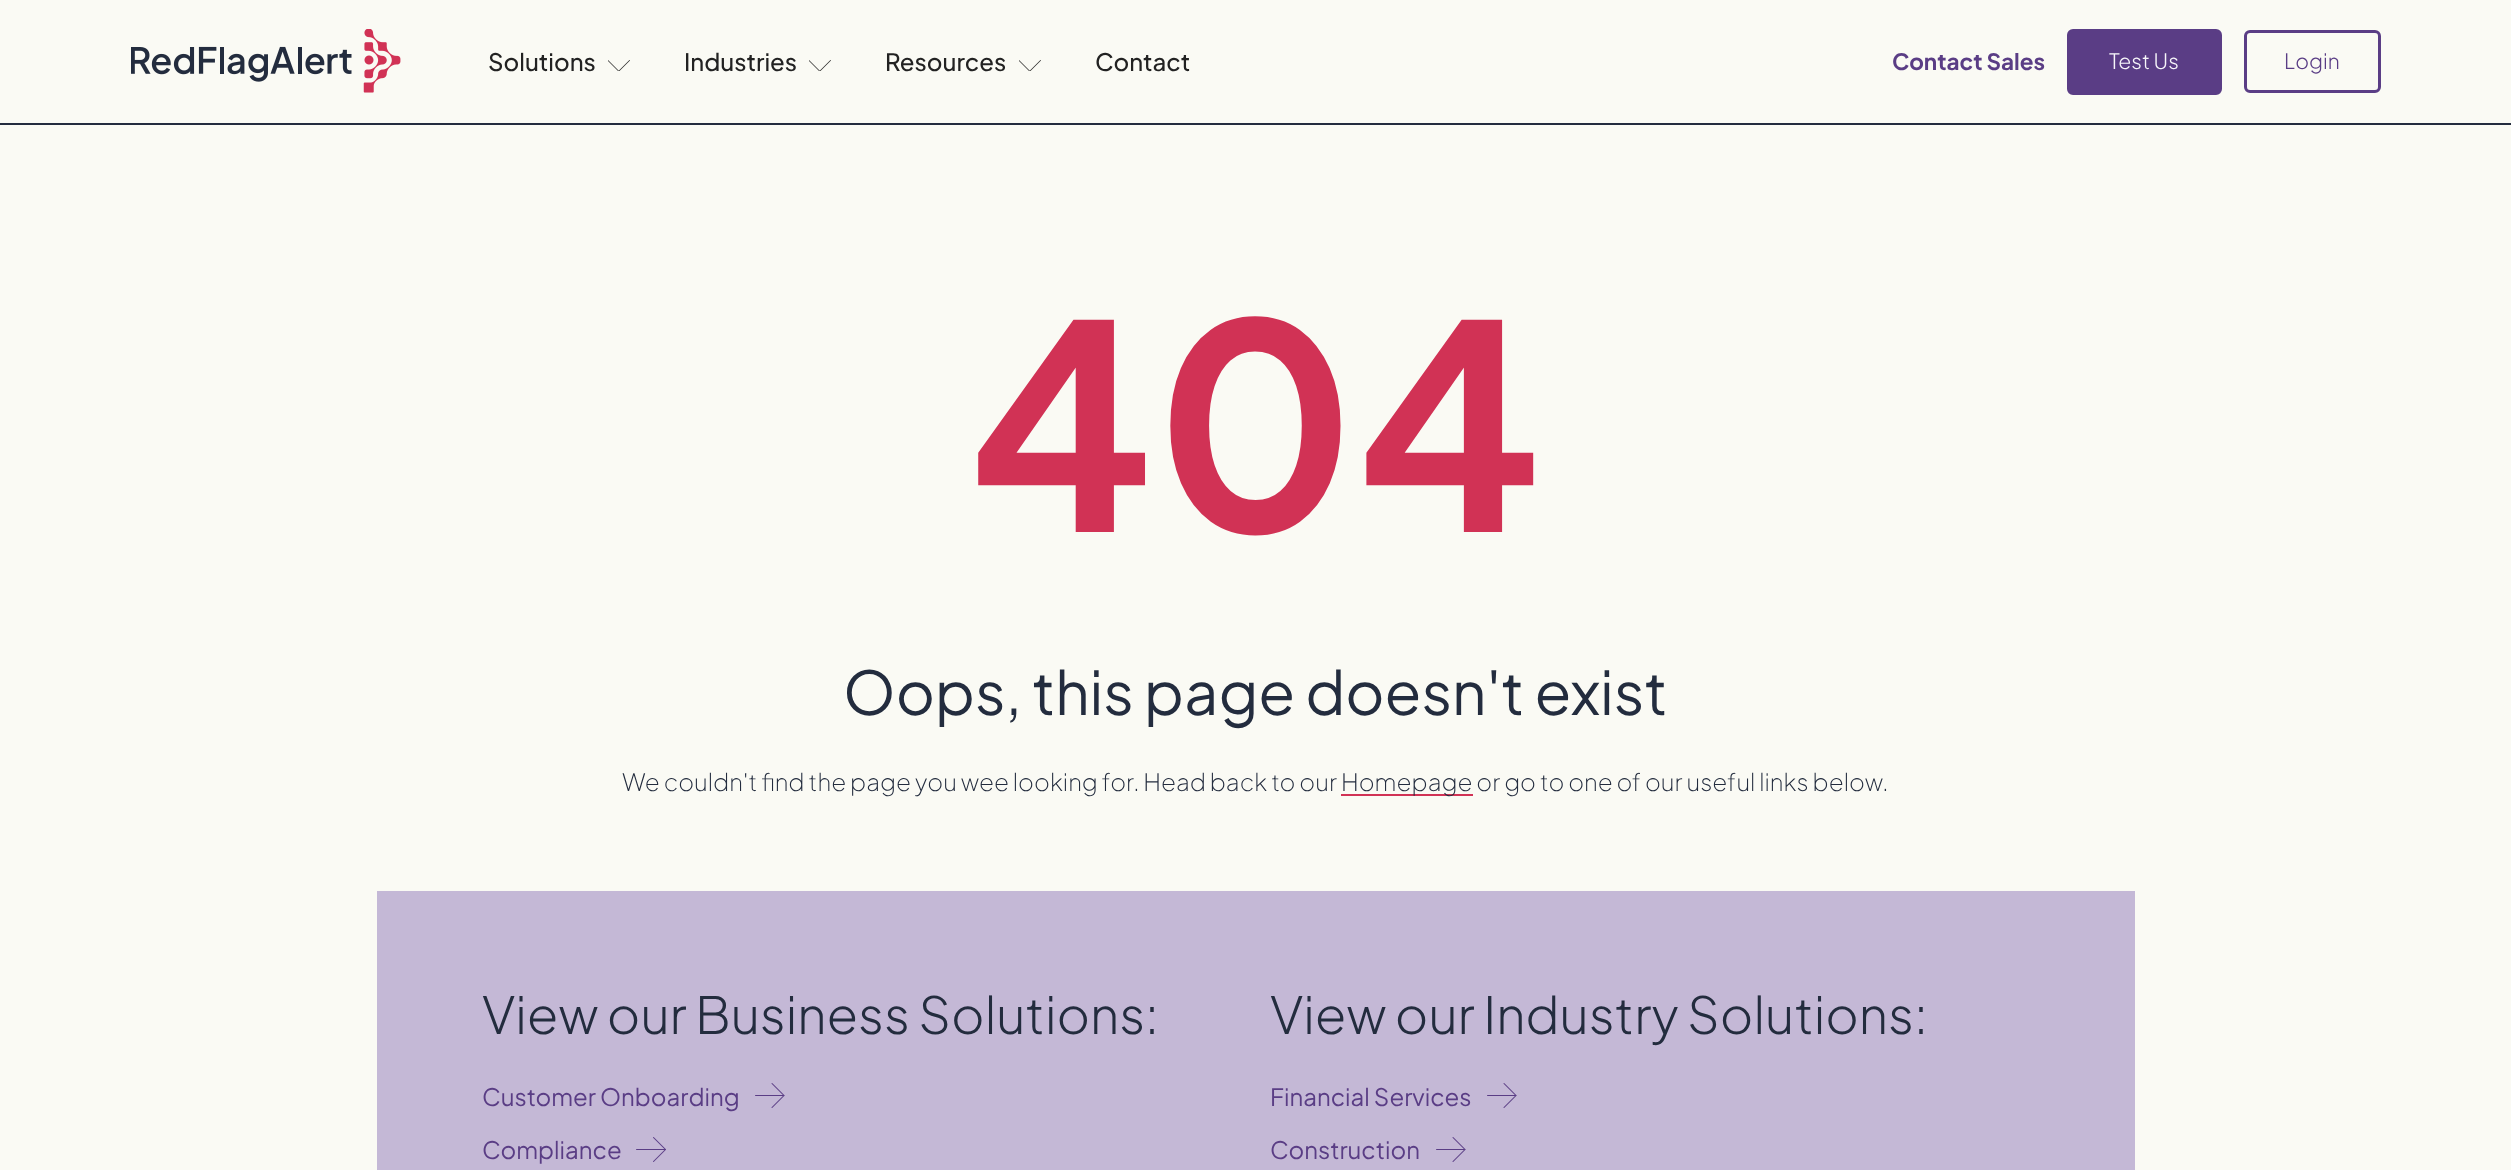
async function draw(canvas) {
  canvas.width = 2511;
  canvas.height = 1170;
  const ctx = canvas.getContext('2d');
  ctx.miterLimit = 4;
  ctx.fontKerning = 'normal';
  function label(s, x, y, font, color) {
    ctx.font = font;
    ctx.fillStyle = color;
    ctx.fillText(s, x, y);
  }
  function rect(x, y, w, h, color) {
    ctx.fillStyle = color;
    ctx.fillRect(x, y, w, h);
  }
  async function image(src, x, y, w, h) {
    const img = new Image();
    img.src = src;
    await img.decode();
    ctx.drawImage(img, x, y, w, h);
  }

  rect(0, 0, 2511, 1170, '#fafaf4');
  rect(0, 123, 2511, 2, '#232c3e');
  await image('assets/img1.png', 131, 29, 270, 64);
  label('Solutions', 488, 71, '500 24px Plus Jakarta Sans', '#222');
  await image('assets/img2.png', 608, 60, 22, 11);
  label('Industries', 684, 71, '500 24px Plus Jakarta Sans', '#222');
  await image('assets/img2.png', 809, 60, 22, 11);
  label('Resources', 885, 71, '500 24px Plus Jakarta Sans', '#222');
  await image('assets/img2.png', 1019, 60, 22, 11);
  label('Contact', 1095, 71, '500 24px Plus Jakarta Sans', '#222');
  label('Contact Sales', 1892, 70, 'bold 22.5px Plus Jakarta Sans', '#5a3d85');
  ctx.beginPath();
  ctx.roundRect(2069.5, 31.5, 150, 61, 3.5);
  ctx.fill();
  ctx.strokeStyle = '#5a3d85';
  ctx.lineWidth = 5;
  ctx.stroke();
  label('Test Us', 2109, 69, '300 21px Plus Jakarta Sans', '#f7f6fa');
  ctx.beginPath();
  ctx.roundRect(2245.5, 31.5, 134, 60, 4.5);
  ctx.lineWidth = 3;
  ctx.stroke();
  label('Login', 2284, 69, '300 21px Plus Jakarta Sans', '#5a3d85');
  label('404', 968, 532, 'bold 285px Plus Jakarta Sans', '#d13255');
  label('Oops, this page doesn\'t exist', 843, 715, '60px Plus Jakarta Sans', '#232c3e');
  label('We couldn\'t find the page you wee looking for. Head back to our', 622, 791, '200 24px Plus Jakarta Sans', '#232c3e');
  rect(1341, 794, 132, 2, '#d13255');
  label('Homepage or go to one of our useful links below.', 1341, 791, '200 24px Plus Jakarta Sans', '#232c3e');
  rect(377, 891, 1758, 279, '#c4b8d6');
  label('View our Business Solutions:', 482, 1034, '300 51px Plus Jakarta Sans', '#232c3e');
  label('Customer Onboarding', 482, 1106, '24px Plus Jakarta Sans', '#5a3d85');
  await image('assets/img3.png', 755, 1083, 30, 25);
  label('Compliance', 482, 1159, '24px Plus Jakarta Sans', '#5a3d85');
  await image('assets/img4.png', 636, 1137, 30, 25);
  label('View our Industry Solutions:', 1270, 1034, '300 51px Plus Jakarta Sans', '#232c3e');
  label('Financial Services', 1270, 1106, '24px Plus Jakarta Sans', '#5a3d85');
  await image('assets/img3.png', 1487, 1083, 30, 25);
  label('Construction', 1270, 1159, '24px Plus Jakarta Sans', '#5a3d85');
  await image('assets/img3.png', 1436, 1137, 30, 25);
}

draw(document.querySelector('canvas'));
